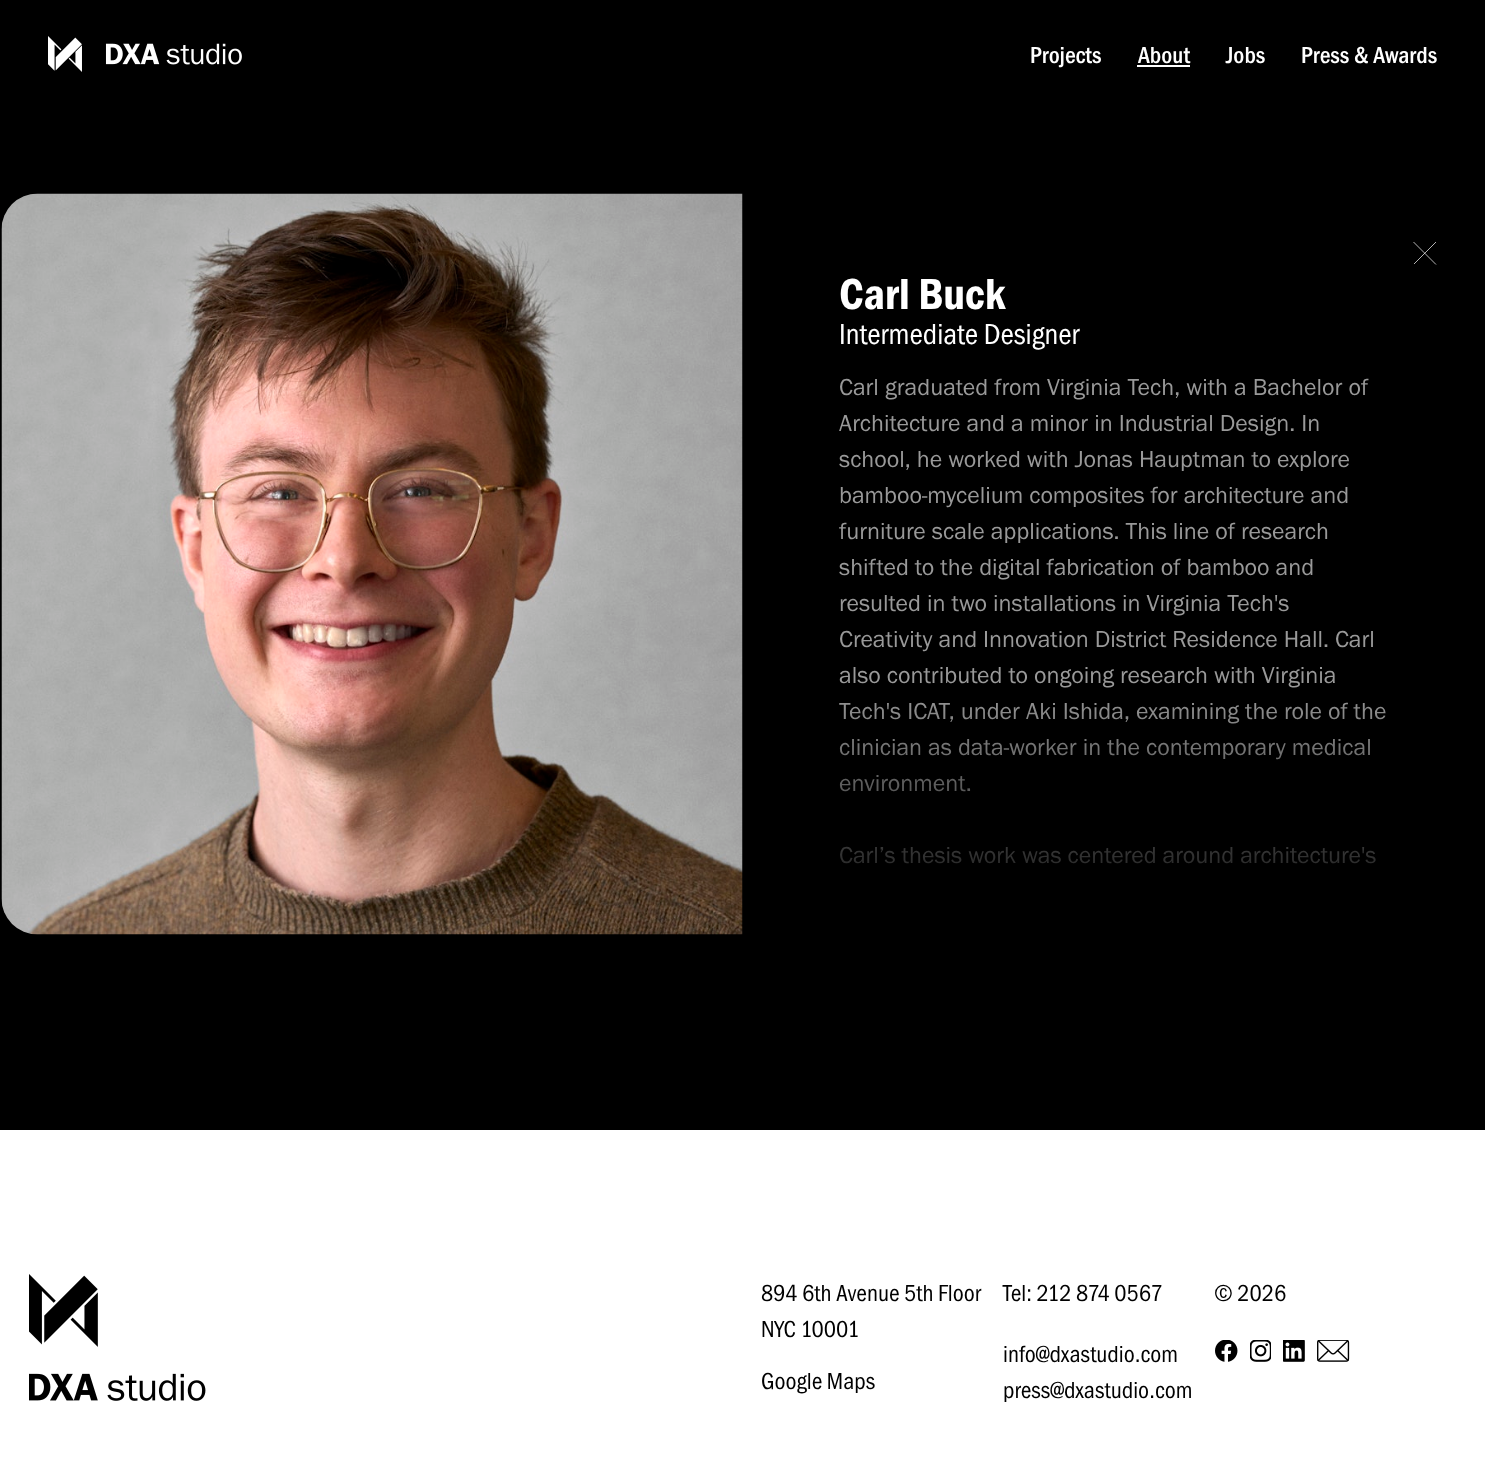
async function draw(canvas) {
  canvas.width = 1485;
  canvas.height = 1458;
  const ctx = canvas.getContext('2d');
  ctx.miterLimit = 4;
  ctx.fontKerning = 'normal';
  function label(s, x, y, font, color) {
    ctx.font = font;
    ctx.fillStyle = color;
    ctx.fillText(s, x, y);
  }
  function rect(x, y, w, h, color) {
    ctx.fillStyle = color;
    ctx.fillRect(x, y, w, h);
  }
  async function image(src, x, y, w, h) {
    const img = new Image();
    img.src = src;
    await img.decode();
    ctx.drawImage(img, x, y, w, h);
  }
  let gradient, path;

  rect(0, 0, 1485, 1458, '#000');
  await image('assets/img1.png', 48, 36, 194, 36);
  label('Projects', 1030, 63, '24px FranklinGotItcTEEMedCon', '#fff');
  label('About', 1138, 63, '24px FranklinGotItcTEEMedCon', '#fff');
  rect(1137, 65, 53, 2, '#fff');
  label('Jobs', 1226, 63, '24px FranklinGotItcTEEMedCon', '#fff');
  label('Press & Awards', 1301, 63, '24px FranklinGotItcTEEMedCon', '#fff');
  label('also contributed to ongoing research with Virginia', 839, 683, '24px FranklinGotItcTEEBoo', '#999');
  label('Tech\'s ICAT, under Aki Ishida, examining the role of the', 839, 719, '24px FranklinGotItcTEEBoo', '#999');
  label('clinician as data-worker in the contemporary medical', 839, 755, '24px FranklinGotItcTEEBoo', '#999');
  label('environment.', 839, 791, '24px FranklinGotItcTEEBoo', '#999');
  label('Carl’s thesis work was centered around architecture\'s', 839, 863, '24px FranklinGotItcTEEBoo', '#999');
  gradient = ctx.createLinearGradient(743, 935, 743, 687);
  gradient.addColorStop(0, '#000');
  gradient.addColorStop(1, '#00000000');
  ctx.fillStyle = gradient;
  ctx.beginPath();
  ctx.roundRect(2, 687, 1482, 248, [0, 0, 36, 36]);
  ctx.fill();
  await image('assets/img2.png', 1, 193, 742, 742);
  path = new Path2D('M1413.5 242L1436 264.5');
  ctx.strokeStyle = '#fff';
  ctx.lineWidth = 0.7;
  ctx.stroke(path);
  ctx.save();
  ctx.beginPath();
  ctx.rect(1413, 242, 23, 22);
  ctx.clip();
  path = new Path2D('M1436 242L1413.5 264.5');
  ctx.stroke(path);
  ctx.restore();
  label('Carl Buck', 839, 309, '45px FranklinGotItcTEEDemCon', '#fff');
  label('Intermediate Designer', 839, 344, '30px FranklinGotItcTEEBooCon', '#fff');
  label('Carl graduated from Virginia Tech, with a Bachelor of', 839, 395, '24px FranklinGotItcTEEBoo', '#999');
  label('Architecture and a minor in Industrial Design. In', 839, 431, '24px FranklinGotItcTEEBoo', '#999');
  label('school, he worked with Jonas Hauptman to explore', 839, 467, '24px FranklinGotItcTEEBoo', '#999');
  label('bamboo-mycelium composites for architecture and', 839, 503, '24px FranklinGotItcTEEBoo', '#999');
  label('furniture scale applications. This line of research', 839, 539, '24px FranklinGotItcTEEBoo', '#999');
  label('shifted to the digital fabrication of bamboo and', 839, 575, '24px FranklinGotItcTEEBoo', '#999');
  label('resulted in two installations in Virginia Tech\'s', 839, 611, '24px FranklinGotItcTEEBoo', '#999');
  label('Creativity and Innovation District Residence Hall. Carl', 839, 647, '24px FranklinGotItcTEEBoo', '#999');
  rect(0, 1130, 1485, 328, '#fff');
  await image('assets/img3.png', 29, 1274, 177, 127);
  label('894 6th Avenue 5th Floor', 761, 1301, '24px FranklinGotItcTEEBooCon', '#000');
  label('NYC 10001', 761, 1337, '24px FranklinGotItcTEEBooCon', '#000');
  label('Google Maps', 761, 1389, '24px FranklinGotItcTEEBooCon', '#000');
  label('Tel: 212 874 0567', 1003, 1301, '24px FranklinGotItcTEEBooCon', '#000');
  label('info@dxastudio.com', 1003, 1362, '24px FranklinGotItcTEEBooCon', '#000');
  label('press@dxastudio.com', 1003, 1398, '24px FranklinGotItcTEEBooCon', '#000');
  label('© 2026', 1214, 1301, '24px FranklinGotItcTEEBooCon', '#000');
  await image('assets/img4.png', 1215, 1340, 23, 22);
  await image('assets/img5.png', 1250, 1340, 21, 22);
  await image('assets/img6.png', 1283, 1340, 22, 22);
  await image('assets/img7.png', 1317, 1340, 33, 22);
}

draw(document.querySelector('canvas'));
